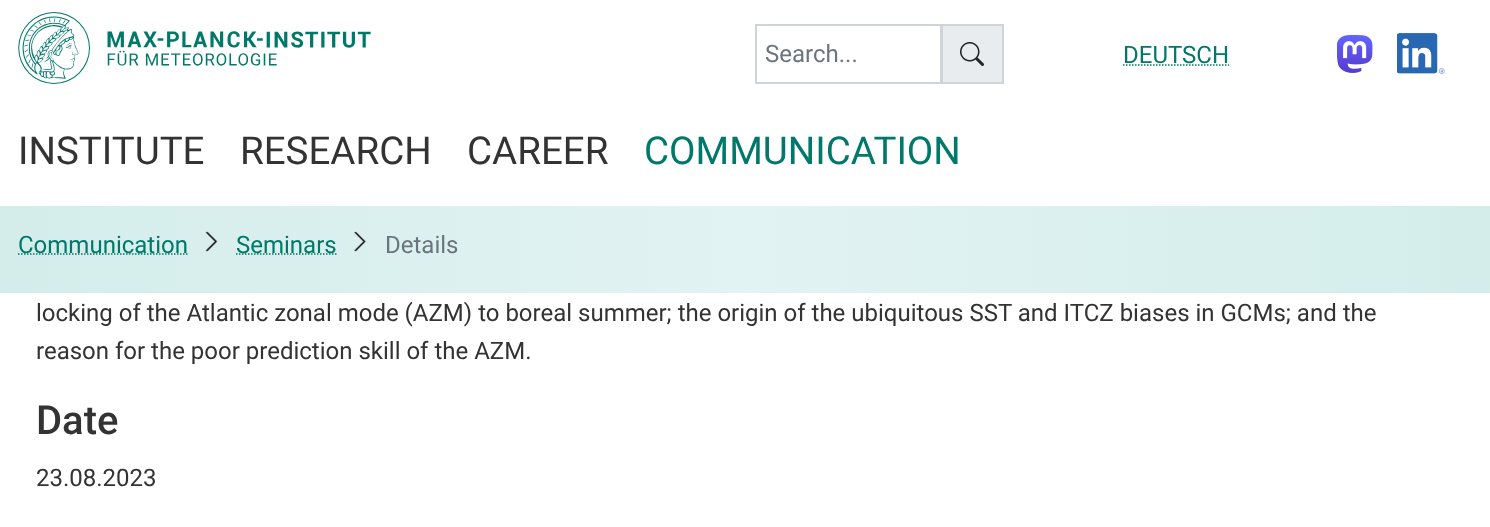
async function draw(canvas) {
  canvas.width = 1490;
  canvas.height = 527;
  const ctx = canvas.getContext('2d');
  ctx.miterLimit = 4;
  ctx.fontKerning = 'normal';
  function label(s, x, y, font, color) {
    ctx.font = font;
    ctx.fillStyle = color;
    ctx.fillText(s, x, y);
  }
  function rect(x, y, w, h, color) {
    ctx.fillStyle = color;
    ctx.fillRect(x, y, w, h);
  }
  async function image(src, x, y, w, h) {
    const img = new Image();
    img.src = src;
    await img.decode();
    ctx.drawImage(img, x, y, w, h);
  }
  let gradient, path;

  rect(0, 0, 1490, 527, '#fff');
  await image('assets/img1.png', 18, 12, 353, 72);
  ctx.fillStyle = '#e9ecef';
  ctx.beginPath();
  ctx.rect(942, 25, 61, 58);
  ctx.fill();
  ctx.strokeStyle = '#ced4da';
  ctx.lineWidth = 2;
  ctx.stroke();
  ctx.strokeRect(756, 25, 185, 58);
  label('Search...', 765, 62, '24px Roboto', '#6c757d');
  await image('assets/img2.png', 960, 42, 24, 24);
  label('DEUTSCH', 1123, 63, '24px Roboto', '#00786a');
  path = new Path2D('M1123 65H1229');
  ctx.strokeStyle = '#00786a';
  ctx.lineWidth = 1.5;
  ctx.setLineDash([1.5, 1.5]);
  ctx.stroke(path);
  await image('assets/img3.png', 1337, 35, 36, 38);
  await image('assets/img4.png', 1397, 33, 48, 41);
  label('INSTITUTE', 18, 164, '38.5px Roboto', '#333');
  label('RESEARCH', 240, 164, '38.5px Roboto', '#333');
  label('CAREER', 467, 164, '38.5px Roboto', '#333');
  label('COMMUNICATION', 644, 164, '38.5px Roboto', '#00786a');
  gradient = ctx.createLinearGradient(0, 247, 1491, 247);
  gradient.addColorStop(0, '#cfebe9e6');
  gradient.addColorStop(0.5, '#def2f1e6');
  gradient.addColorStop(1, '#cfebe9e6');
  ctx.fillStyle = gradient;
  ctx.fillRect(0, 206, 1490, 87);
  path = new Path2D('M18 254H188');
  ctx.stroke(path);
  label('Communication', 18, 253, '24px Roboto', '#00786a');
  await image('assets/img5.png', 205, 231, 13, 21);
  path = new Path2D('M236 254H336.5');
  ctx.stroke(path);
  label('Seminars', 236, 253, '24px Roboto', '#00786a');
  await image('assets/img6.png', 354, 231, 12, 21);
  label('Details', 385, 253, '24px Roboto', '#6c757d');
  label('locking of the Atlantic zonal mode (AZM) to boreal summer; the origin of the ubiquitous SST and ITCZ biases in GCMs; and the', 36, 321, '24px Roboto', '#333');
  label('reason for the poor prediction skill of the AZM.', 36, 359, '24px Roboto', '#333');
  label('Date', 36, 434, '500 40px Roboto', '#333');
  label('23.08.2023', 36, 486, '24px Roboto', '#333');
}

draw(document.querySelector('canvas'));
